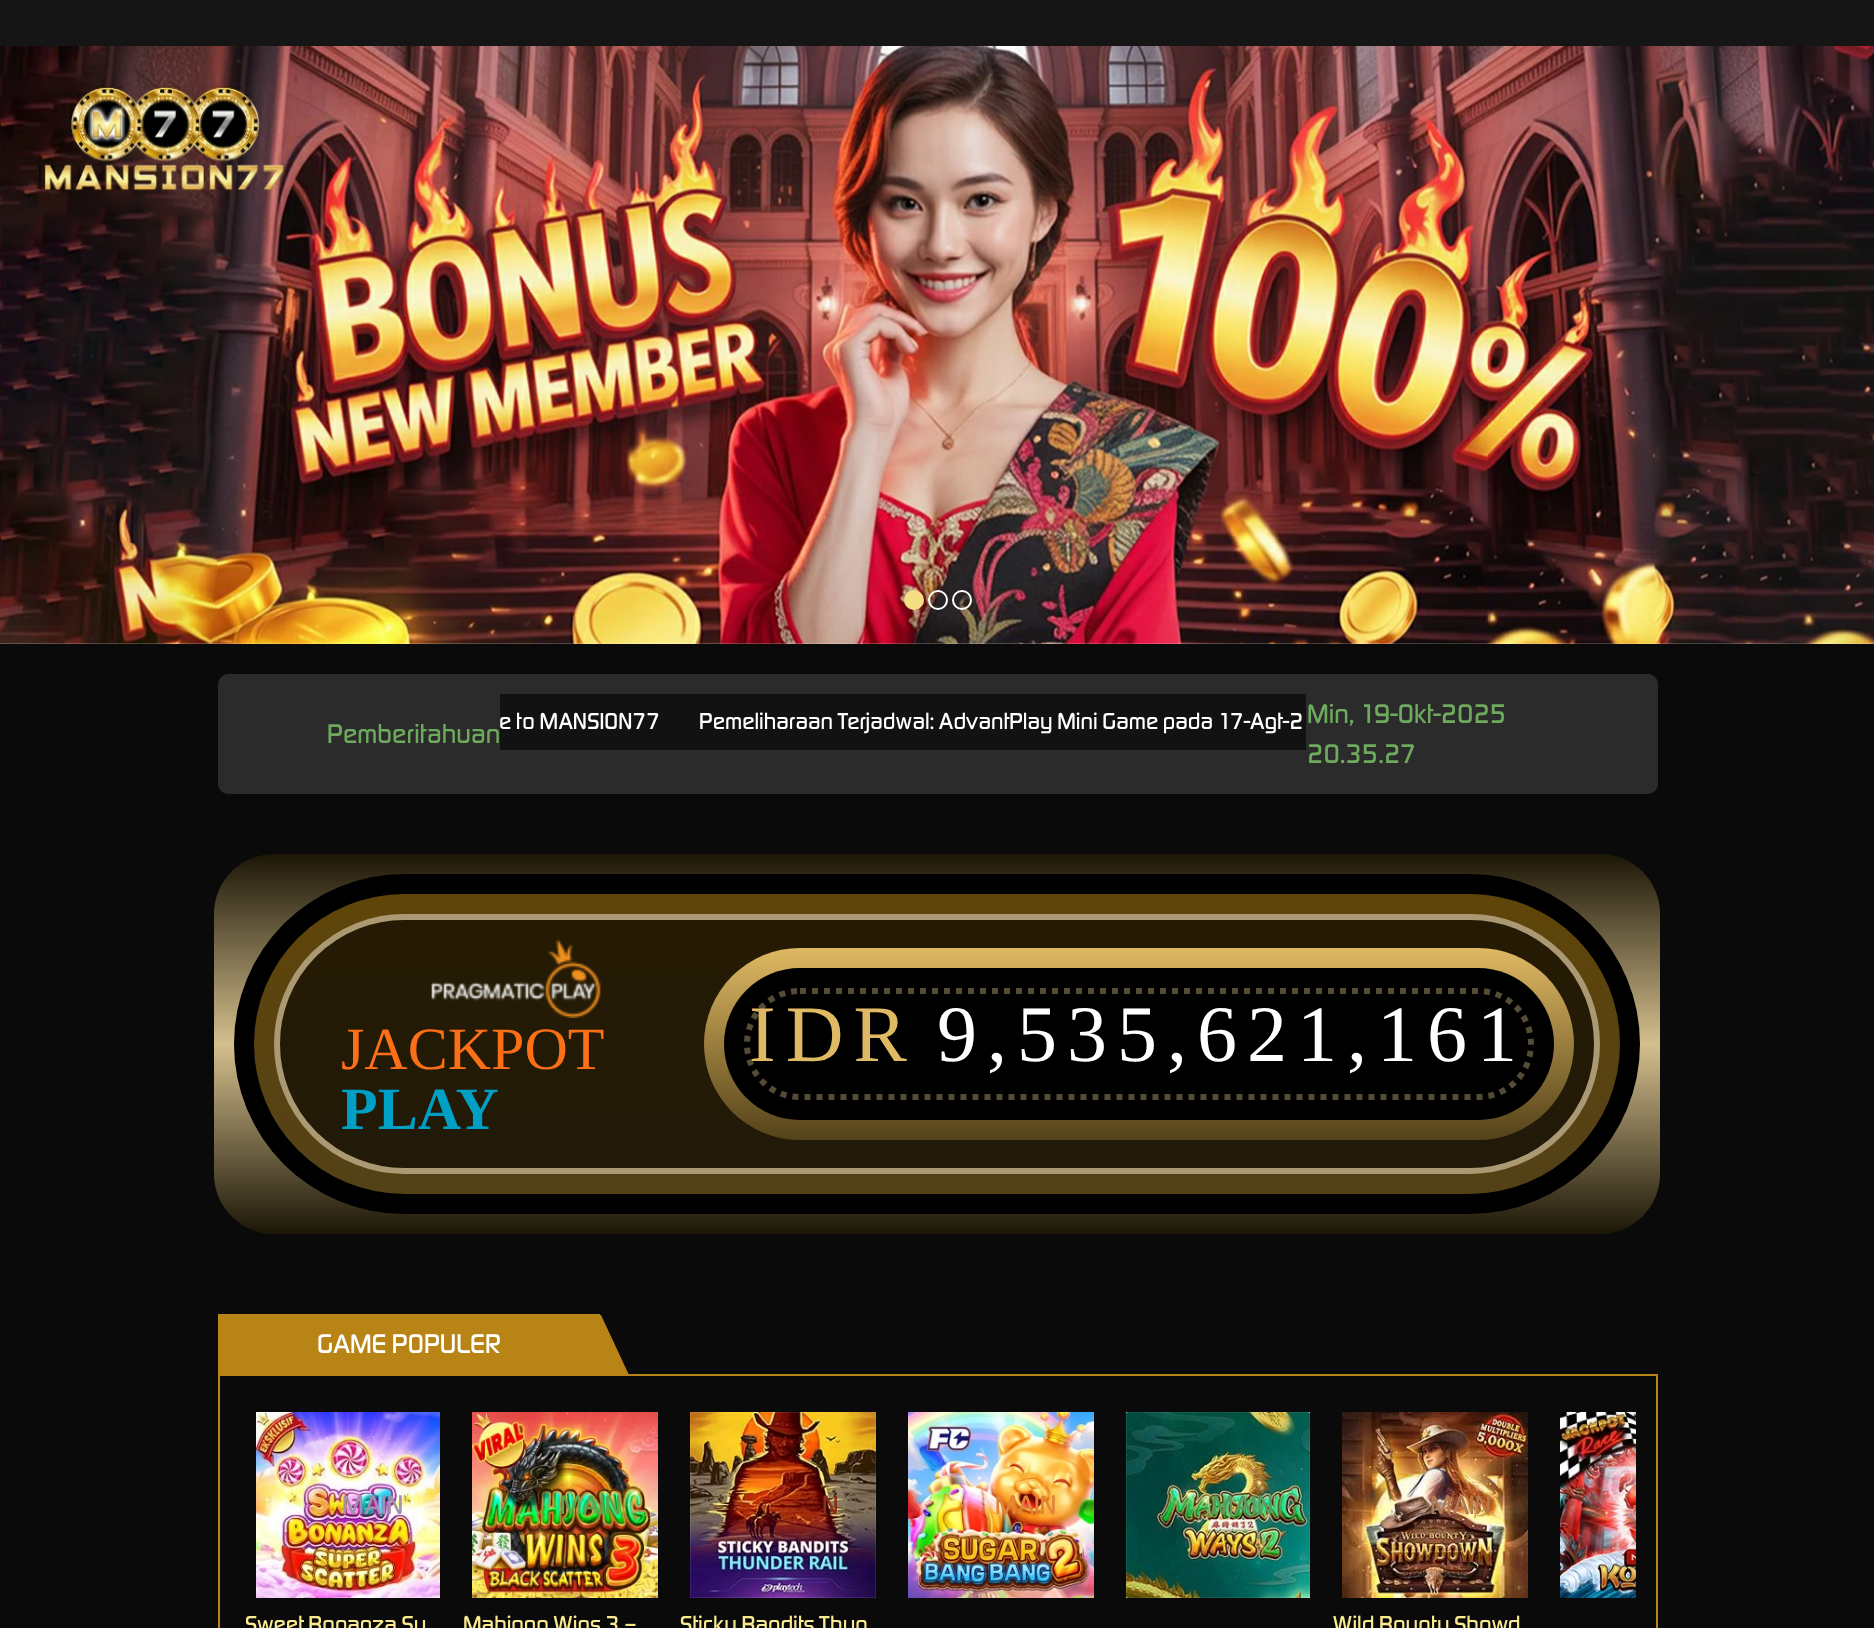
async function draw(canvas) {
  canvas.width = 1874;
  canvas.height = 1628;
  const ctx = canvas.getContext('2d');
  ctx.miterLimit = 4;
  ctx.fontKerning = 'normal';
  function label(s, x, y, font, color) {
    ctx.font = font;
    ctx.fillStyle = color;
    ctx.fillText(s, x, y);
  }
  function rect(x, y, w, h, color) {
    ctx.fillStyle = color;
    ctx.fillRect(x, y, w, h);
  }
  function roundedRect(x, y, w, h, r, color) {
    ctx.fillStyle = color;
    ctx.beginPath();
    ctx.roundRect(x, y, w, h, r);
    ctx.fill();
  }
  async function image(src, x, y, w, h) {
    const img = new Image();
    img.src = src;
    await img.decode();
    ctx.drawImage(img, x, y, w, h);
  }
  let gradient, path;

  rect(0, 0, 1874, 1628, '#fff');
  rect(0, 0, 1874, 46, '#151515');
  await image('assets/img1.png', 0, 46, 1874, 598);
  ctx.fillStyle = '#f4e082';
  ctx.beginPath();
  ctx.arc(914, 600, 9, 0, 2 * Math.PI);
  ctx.fill();
  ctx.strokeStyle = '#f4e082';
  ctx.lineWidth = 2;
  ctx.stroke();
  ctx.beginPath();
  ctx.arc(938, 600, 9, 0, 2 * Math.PI);
  ctx.strokeStyle = '#fff';
  ctx.stroke();
  ctx.beginPath();
  ctx.arc(962, 600, 9, 0, 2 * Math.PI);
  ctx.stroke();
  rect(0, 644, 1874, 984, '#0a0a0a');
  roundedRect(218, 674, 1440, 120, 10, '#2b2b2b');
  label('Pemberitahuan', 327, 743, '500 28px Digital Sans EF', '#6eaa5e');
  rect(500, 694, 806, 56, '#131212');
  ctx.save();
  ctx.beginPath();
  ctx.rect(500, 694, 806, 56);
  ctx.clip();
  label('e to MANSION77', 499, 729, '500 24px Digital Sans EF', '#fff');
  ctx.restore();
  label('Pemeliharaan Terjadwal: AdvantPlay Mini Game pada 17-Agt-2', 699, 729, '500 24px Digital Sans EF', '#fff');
  label('Min, 19-Okt-2025', 1307, 723, '500 28px Digital Sans EF', '#6eaa5e');
  label('20.35.27', 1307, 763, '500 28px Digital Sans EF', '#6eaa5e');
  gradient = ctx.createLinearGradient(937, 854, 937, 1234);
  gradient.addColorStop(0, '#1c1607');
  gradient.addColorStop(0.5, '#d4bf8e');
  gradient.addColorStop(1, '#1c1607');
  ctx.fillStyle = gradient;
  ctx.beginPath();
  ctx.roundRect(214, 854, 1446, 380, 60);
  ctx.fill();
  roundedRect(234, 874, 1406, 340, 170, '#000');
  gradient = ctx.createLinearGradient(937, 894, 937, 1194);
  gradient.addColorStop(0, '#5f4509');
  gradient.addColorStop(1, '#534117');
  ctx.fillStyle = gradient;
  ctx.beginPath();
  ctx.roundRect(254, 894, 1366, 300, 150);
  ctx.fill();
  ctx.fillStyle = '#00000099';
  ctx.beginPath();
  ctx.roundRect(277, 917, 1320, 254, 127);
  ctx.fill();
  ctx.strokeStyle = '#aa9972';
  ctx.lineWidth = 6;
  ctx.stroke();
  await image('assets/img2.png', 431, 940, 170, 78);
  label('JACKPOT', 341, 1069, '60px Liberation Serif', '#fd6f16');
  label('PLAY', 341, 1129, 'bold 60px Liberation Serif', '#009fc5');
  gradient = ctx.createLinearGradient(1139, 948, 1139, 1140);
  gradient.addColorStop(0, '#dfb963');
  gradient.addColorStop(1, '#54421a');
  ctx.fillStyle = gradient;
  ctx.beginPath();
  ctx.roundRect(704, 948, 870, 192, 96);
  ctx.fill();
  roundedRect(724, 968, 830, 152, 76, '#000');
  path = new Path2D('M800 991H1478C1507.5 991 1531 1014.5 1531 1044C1531 1073.5 1507.5 1097 1478 1097H800C770.5 1097 747 1073.5 747 1044C747 1014.5 770.5 991 800 991Z');
  ctx.strokeStyle = '#554c36';
  ctx.setLineDash([6, 6]);
  ctx.stroke(path);
  ctx.letterSpacing = '10px';
  label('IDR', 749, 1061, '80px Liberation Serif', '#dfb963');
  label('9,535,621,161', 937, 1061, '80px Liberation Serif', '#fff');
  rect(218, 1314, 382, 60, '#b88416');
  ctx.letterSpacing = '0px';
  label('GAME POPULER', 317, 1353, '500 28px Digital Sans EF', '#fff');
  ctx.strokeStyle = '#b88416';
  ctx.lineWidth = 2;
  ctx.setLineDash([]);
  ctx.strokeRect(219, 1375, 1438, 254);
  ctx.fillStyle = '#b88416';
  path = new Path2D('M561 1315H601L629 1375H589Z');
  ctx.fill(path);
  await image('assets/img3.png', 256, 1412, 184, 186);
  label('MAIN', 342, 1514, '500 28px Digital Sans EF', '#a190af');
  ctx.save();
  ctx.beginPath();
  ctx.rect(246, 1608, 204, 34);
  ctx.clip();
  label('Sweet Bonanza Su', 245, 1632, '500 24px Digital Sans EF', '#fbeb8f');
  ctx.restore();
  await image('assets/img4.png', 472, 1412, 186, 186);
  label('MAIN', 560, 1514, '500 28px Digital Sans EF', '#5ea54c');
  label('Mahjong Wins 3 –', 463, 1632, '500 24px Digital Sans EF', '#fbeb8f');
  await image('assets/img5.png', 690, 1412, 186, 186);
  label('N', 822, 1514, '500 28px Digital Sans EF', '#882f18');
  label('Sticky Bandits Thun', 680, 1632, '500 24px Digital Sans EF', '#fbeb8f');
  await image('assets/img6.png', 908, 1412, 186, 186);
  label('MAIN', 995, 1514, '500 28px Digital Sans EF', '#e18539');
  await image('assets/img7.png', 1126, 1412, 184, 186);
  label('MAIN', 1212, 1514, '500 28px Digital Sans EF', '#5c9b5c');
  await image('assets/img8.png', 1342, 1412, 186, 186);
  label('MAIN', 1430, 1514, '500 28px Digital Sans EF', '#b37a52');
  label('Wild Bounty Showd', 1333, 1632, '500 24px Digital Sans EF', '#fbeb8f');
  await image('assets/img9.png', 1560, 1412, 76, 186);
}

draw(document.querySelector('canvas'));
